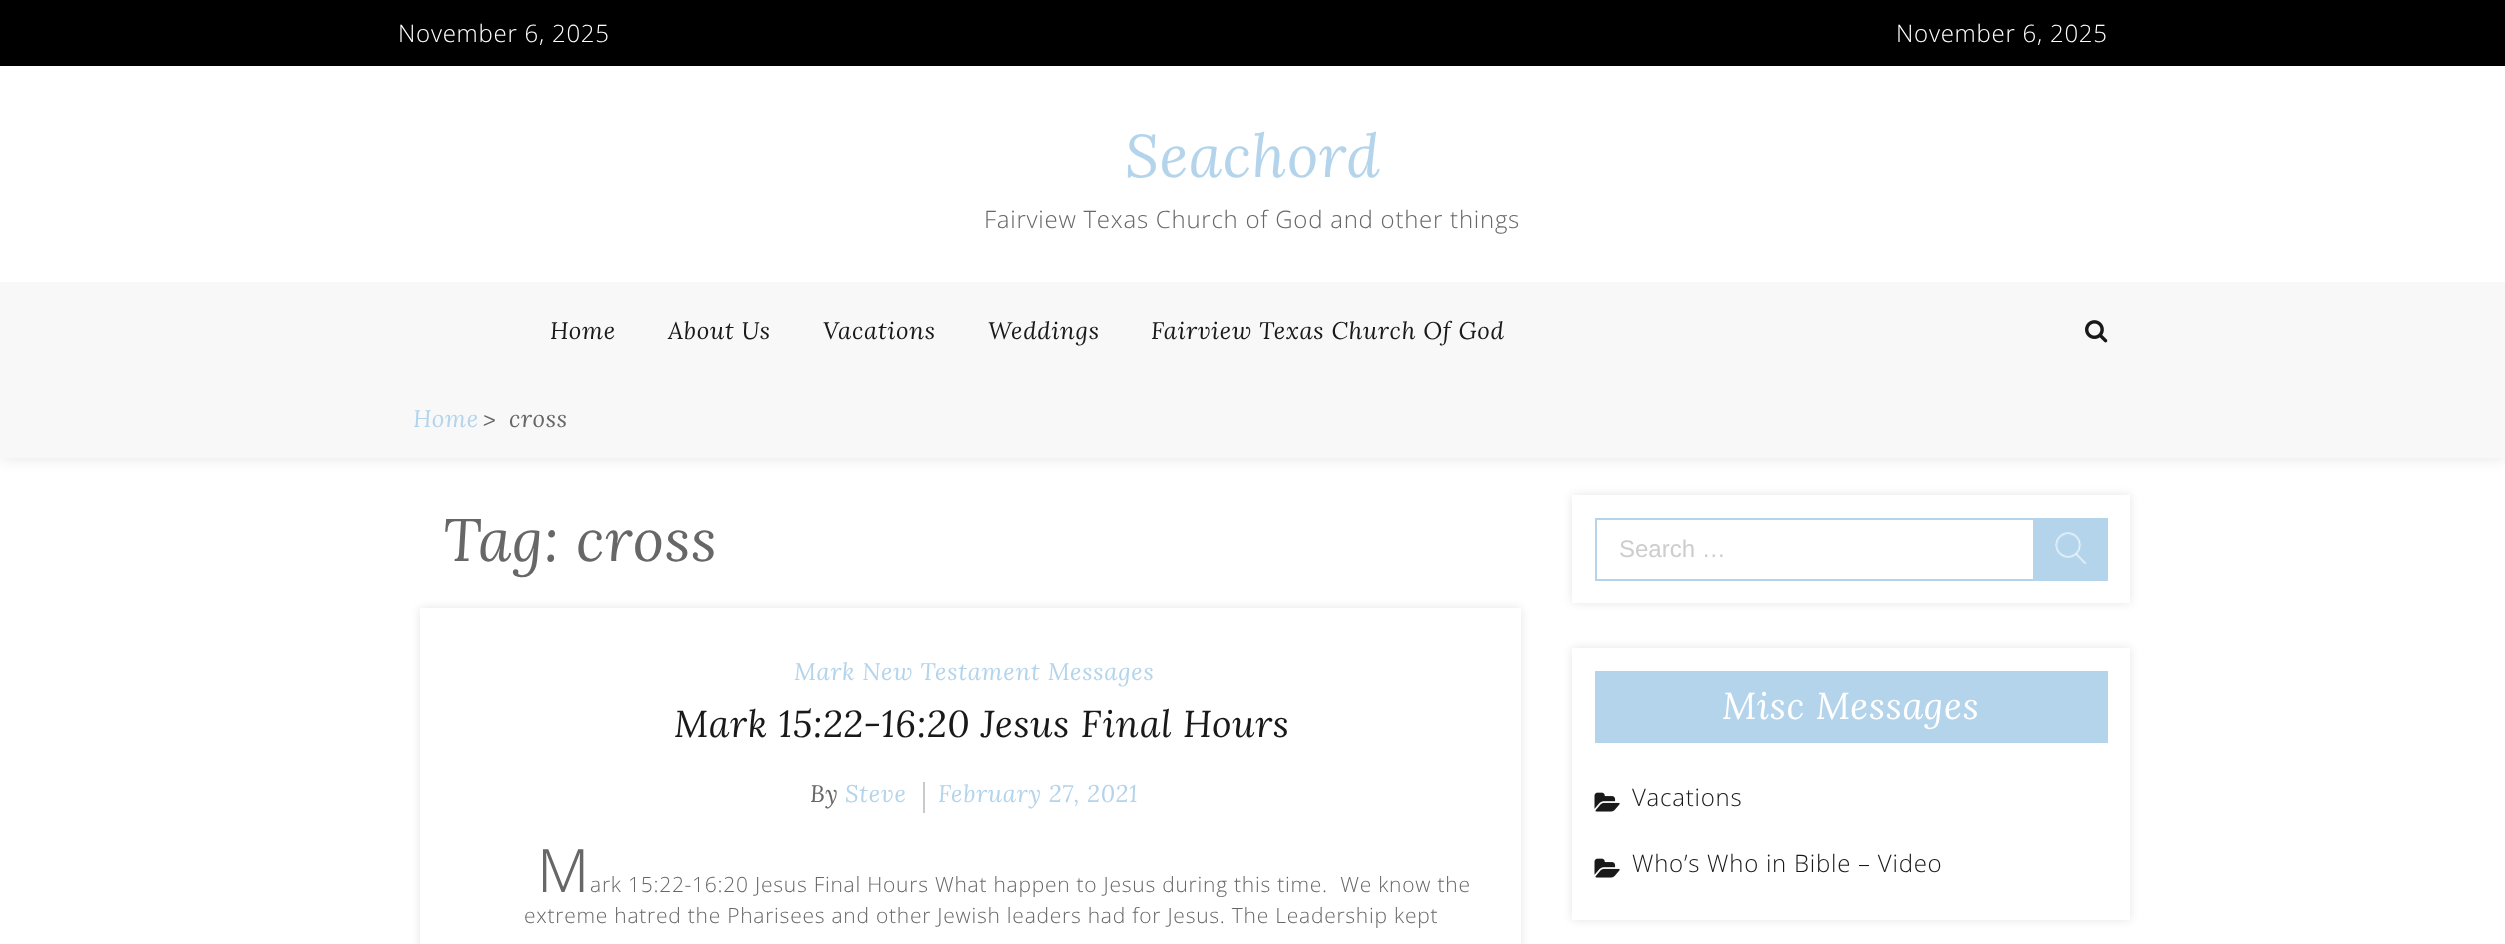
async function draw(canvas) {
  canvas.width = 2505;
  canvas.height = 944;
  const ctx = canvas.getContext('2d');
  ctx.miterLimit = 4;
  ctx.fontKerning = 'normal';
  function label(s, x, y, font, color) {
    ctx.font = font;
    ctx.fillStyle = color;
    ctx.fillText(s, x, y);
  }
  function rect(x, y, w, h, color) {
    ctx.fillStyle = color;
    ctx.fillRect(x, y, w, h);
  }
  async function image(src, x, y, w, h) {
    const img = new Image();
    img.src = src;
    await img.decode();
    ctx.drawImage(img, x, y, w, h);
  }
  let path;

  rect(0, 0, 2505, 944, '#fff');
  rect(0, 0, 2505, 66, '#000');
  ctx.letterSpacing = '0.75px';
  label('November 6, 2025', 398, 42, '300 24px Open Sans', '#fff');
  label('November 6, 2025', 1896, 42, '300 24px Open Sans', '#fff');
  label('Seachord', 1125, 177, 'italic 60px Lora', '#b3d4eb');
  label('Fairview Texas Church of God and other things', 984, 228, '300 24px Open Sans', '#676767');
  ctx.fillStyle = '#0000001a';
  ctx.filter = 'blur(8px)';
  ctx.beginPath();
  ctx.rect(0, 378, 2505, 80);
  ctx.fill();
  ctx.filter = 'none';
  rect(0, 282, 2505, 176, '#f8f8f8');
  label('Home', 550, 339, 'italic 24px Lora', '#191919');
  label('About Us', 668, 339, 'italic 24px Lora', '#191919');
  label('Vacations', 823, 339, 'italic 24px Lora', '#191919');
  label('Weddings', 988, 339, 'italic 24px Lora', '#191919');
  label('Fairview Texas Church Of God', 1151, 339, 'italic 24px Lora', '#191919');
  await image('assets/img1.png', 2085, 320, 23, 23);
  label('Home', 413, 427, 'italic 24px Lora', '#b3d4eb');
  label('>', 483, 428, 'italic 24px Lora', '#676767');
  label('cross', 509, 427, 'italic 24px Lora', '#676767');
  label('Tag: cross', 443, 561, 'italic 60px Lora', '#676767');
  ctx.save();
  path = new Path2D('M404 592H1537V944H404ZM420 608H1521V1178H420Z');
  ctx.clip(path, 'evenodd');
  ctx.fillStyle = '#0000001a';
  ctx.filter = 'blur(5px)';
  ctx.beginPath();
  ctx.rect(420, 608, 1101, 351);
  ctx.fill();
  ctx.filter = 'none';
  ctx.restore();
  label('Mark New Testament Messages', 794, 680, 'italic 24px Lora', '#b3d4eb');
  label('Mark 15:22-16:20 Jesus Final Hours', 674, 737, 'italic 37.5px Lora', '#191919');
  rect(923, 782, 2, 31, '#cac8c8');
  label('By', 810, 802, 'italic 24px Lora', '#676767');
  label('Steve', 845, 802, 'italic 24px Lora', '#b3d4eb');
  label('February 27, 2021', 938, 802, 'italic 24px Lora', '#b3d4eb');
  label('M', 537, 892, '300 60px Noto Sans', '#676767');
  label('ark 15:22-16:20 Jesus Final Hours What happen to Jesus during this time.  We know the', 590, 892, '300 21px Open Sans', '#676767');
  label('extreme hatred the Pharisees and other Jewish leaders had for Jesus. The Leadership kept', 524, 923, '300 21px Open Sans', '#676767');
  ctx.save();
  path = new Path2D('M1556 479H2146V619H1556ZM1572 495H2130V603H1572Z');
  ctx.clip(path, 'evenodd');
  ctx.fillStyle = '#0000001a';
  ctx.filter = 'blur(5px)';
  ctx.beginPath();
  ctx.rect(1572, 495, 558, 108);
  ctx.fill();
  ctx.filter = 'none';
  ctx.restore();
  ctx.strokeStyle = '#b3d4eb';
  ctx.lineWidth = 2;
  ctx.strokeRect(1596, 519, 511, 61);
  ctx.letterSpacing = '0px';
  label('Search …', 1619, 557, '24px Liberation Sans', '#cdcdcd');
  rect(2033, 520, 73, 59, '#b3d4eb');
  await image('assets/img2.png', 2055, 532, 32, 32);
  ctx.fillStyle = '#0000001a';
  ctx.filter = 'blur(5px)';
  ctx.beginPath();
  ctx.rect(1572, 648, 558, 272);
  ctx.fill();
  ctx.filter = 'none';
  rect(1572, 648, 558, 272, '#fff');
  rect(1595, 671, 513, 72, '#b3d4eb');
  ctx.letterSpacing = '0.75px';
  label('Misc Messages', 1722, 719, 'italic 37.5px Lora', '#fff');
  await image('assets/img3.png', 1594, 792, 26, 20);
  label('Vacations', 1632, 806, '300 24px Open Sans', '#191919');
  await image('assets/img3.png', 1594, 858, 26, 20);
  label('Who’s Who in Bible – Video', 1632, 872, '300 24px Open Sans', '#191919');
}

draw(document.querySelector('canvas'));
